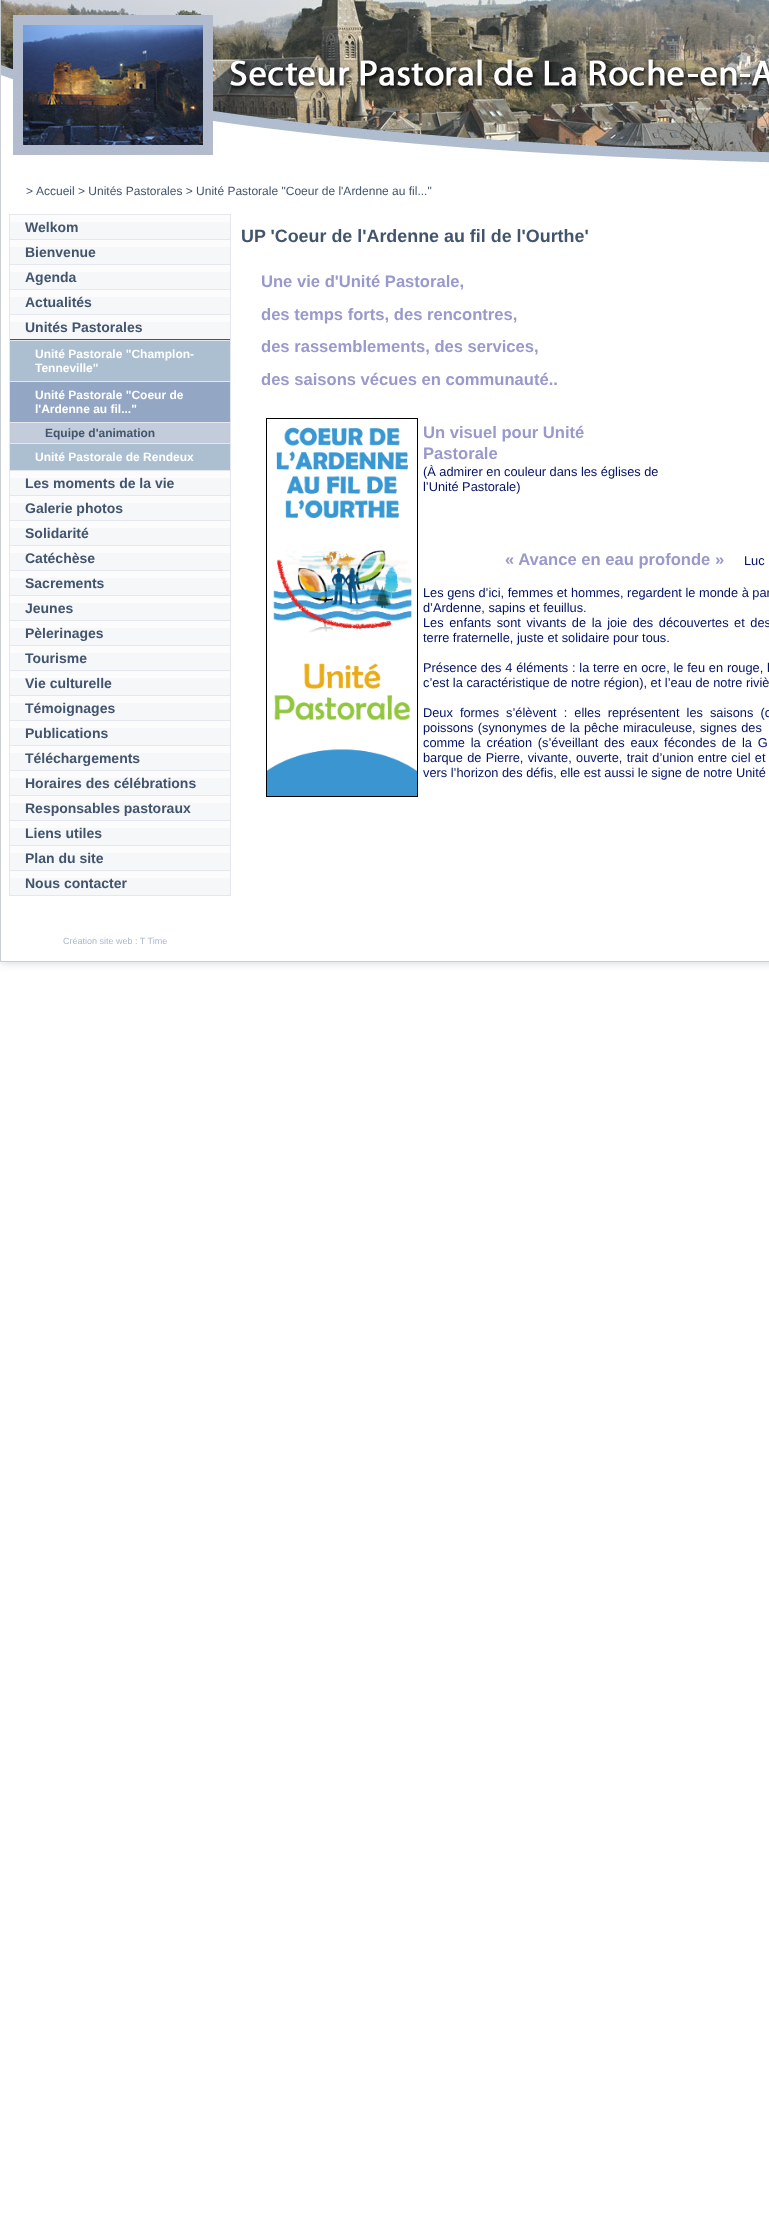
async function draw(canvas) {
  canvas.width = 769;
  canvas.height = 2224;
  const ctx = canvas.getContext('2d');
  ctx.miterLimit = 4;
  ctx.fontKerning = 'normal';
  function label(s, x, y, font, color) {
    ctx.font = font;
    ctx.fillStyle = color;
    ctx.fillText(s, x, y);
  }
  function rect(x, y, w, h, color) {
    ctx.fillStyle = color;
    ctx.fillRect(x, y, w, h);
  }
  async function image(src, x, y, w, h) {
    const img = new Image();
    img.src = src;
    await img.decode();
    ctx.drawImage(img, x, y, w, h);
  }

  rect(0, 0, 769, 2224, '#fff');
  ctx.save();
  ctx.beginPath();
  ctx.rect(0, 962, 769, 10);
  ctx.clip();
  ctx.fillStyle = '#cacfd6';
  ctx.filter = 'blur(5px)';
  ctx.beginPath();
  ctx.rect(0, 0, 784, 962);
  ctx.fill();
  ctx.filter = 'none';
  ctx.restore();
  rect(0, 961, 769, 1, '#cacfd6');
  rect(0, 0, 1, 962, '#cacfd6');
  await image('assets/img1.png', 1, 0, 768, 168);
  label('>', 26, 195, '12px Liberation Sans', '#42556d');
  label('Accueil > Unités Pastorales > Unité Pastorale "Coeur de l\'Ardenne au fil..."', 36, 195, '12px Liberation Sans', '#42556d');
  rect(230, 214, 1, 682, '#e4e8ee');
  rect(9, 895, 222, 1, '#e4e8ee');
  rect(9, 214, 1, 682, '#e4e8ee');
  rect(10, 222, 220, 17, '#f6f7f9');
  rect(10, 215, 220, 7, '#fcfcfc');
  rect(10, 214, 220, 1, '#e4e8ee');
  label('Welkom', 25, 232, 'bold 14px Liberation Sans', '#42556d');
  rect(10, 247, 220, 17, '#f6f7f9');
  rect(10, 240, 220, 7, '#fcfcfc');
  rect(10, 239, 220, 1, '#e4e8ee');
  label('Bienvenue', 25, 257, 'bold 14px Liberation Sans', '#42556d');
  rect(10, 272, 220, 17, '#f6f7f9');
  rect(10, 265, 220, 7, '#fcfcfc');
  rect(10, 264, 220, 1, '#e4e8ee');
  label('Agenda', 25, 282, 'bold 14px Liberation Sans', '#42556d');
  rect(10, 297, 220, 17, '#f6f7f9');
  rect(10, 290, 220, 7, '#fcfcfc');
  rect(10, 289, 220, 1, '#e4e8ee');
  label('Actualités', 25, 307, 'bold 14px Liberation Sans', '#42556d');
  rect(10, 322, 220, 17, '#f6f7f9');
  rect(10, 315, 220, 7, '#fcfcfc');
  rect(10, 314, 220, 1, '#e4e8ee');
  rect(10, 339, 220, 1, '#42556d');
  label('Unités Pastorales', 25, 332, 'bold 14px Liberation Sans', '#42556d');
  rect(10, 341, 220, 40, '#acbfd0');
  rect(10, 340, 220, 1, '#e4e8ee');
  label('Unité Pastorale "Champlon-', 35, 358, 'bold 12px Liberation Sans', '#fff');
  label('Tenneville"', 35, 372, 'bold 12px Liberation Sans', '#fff');
  rect(10, 382, 220, 40, '#93a6c3');
  rect(10, 381, 220, 1, '#e4e8ee');
  label('Unité Pastorale "Coeur de', 35, 399, 'bold 12px Liberation Sans', '#fff');
  label('l\'Ardenne au fil..."', 35, 413, 'bold 12px Liberation Sans', '#fff');
  rect(10, 423, 220, 20, '#c2ccda');
  rect(10, 422, 220, 1, '#e4e8ee');
  label('Equipe d\'animation', 45, 437, 'bold 12px Liberation Sans', '#42556d');
  rect(10, 444, 220, 26, '#acbfd0');
  rect(10, 443, 220, 1, '#e4e8ee');
  label('Unité Pastorale de Rendeux', 35, 461, 'bold 12px Liberation Sans', '#fff');
  rect(10, 478, 220, 17, '#f6f7f9');
  rect(10, 471, 220, 7, '#fcfcfc');
  rect(10, 470, 220, 1, '#e4e8ee');
  label('Les moments de la vie', 25, 488, 'bold 14px Liberation Sans', '#42556d');
  rect(10, 503, 220, 17, '#f6f7f9');
  rect(10, 496, 220, 7, '#fcfcfc');
  rect(10, 495, 220, 1, '#e4e8ee');
  label('Galerie photos', 25, 513, 'bold 14px Liberation Sans', '#42556d');
  rect(10, 528, 220, 17, '#f6f7f9');
  rect(10, 521, 220, 7, '#fcfcfc');
  rect(10, 520, 220, 1, '#e4e8ee');
  label('Solidarité', 25, 538, 'bold 14px Liberation Sans', '#42556d');
  rect(10, 553, 220, 17, '#f6f7f9');
  rect(10, 546, 220, 7, '#fcfcfc');
  rect(10, 545, 220, 1, '#e4e8ee');
  label('Catéchèse', 25, 563, 'bold 14px Liberation Sans', '#42556d');
  rect(10, 578, 220, 17, '#f6f7f9');
  rect(10, 571, 220, 7, '#fcfcfc');
  rect(10, 570, 220, 1, '#e4e8ee');
  label('Sacrements', 25, 588, 'bold 14px Liberation Sans', '#42556d');
  rect(10, 603, 220, 17, '#f6f7f9');
  rect(10, 596, 220, 7, '#fcfcfc');
  rect(10, 595, 220, 1, '#e4e8ee');
  label('Jeunes', 25, 613, 'bold 14px Liberation Sans', '#42556d');
  rect(10, 628, 220, 17, '#f6f7f9');
  rect(10, 621, 220, 7, '#fcfcfc');
  rect(10, 620, 220, 1, '#e4e8ee');
  label('Pèlerinages', 25, 638, 'bold 14px Liberation Sans', '#42556d');
  rect(10, 653, 220, 17, '#f6f7f9');
  rect(10, 646, 220, 7, '#fcfcfc');
  rect(10, 645, 220, 1, '#e4e8ee');
  label('Tourisme', 25, 663, 'bold 14px Liberation Sans', '#42556d');
  rect(10, 678, 220, 17, '#f6f7f9');
  rect(10, 671, 220, 7, '#fcfcfc');
  rect(10, 670, 220, 1, '#e4e8ee');
  label('Vie culturelle', 25, 688, 'bold 14px Liberation Sans', '#42556d');
  rect(10, 703, 220, 17, '#f6f7f9');
  rect(10, 696, 220, 7, '#fcfcfc');
  rect(10, 695, 220, 1, '#e4e8ee');
  label('Témoignages', 25, 713, 'bold 14px Liberation Sans', '#42556d');
  rect(10, 728, 220, 17, '#f6f7f9');
  rect(10, 721, 220, 7, '#fcfcfc');
  rect(10, 720, 220, 1, '#e4e8ee');
  label('Publications', 25, 738, 'bold 14px Liberation Sans', '#42556d');
  rect(10, 753, 220, 17, '#f6f7f9');
  rect(10, 746, 220, 7, '#fcfcfc');
  rect(10, 745, 220, 1, '#e4e8ee');
  label('Téléchargements', 25, 763, 'bold 14px Liberation Sans', '#42556d');
  rect(10, 778, 220, 17, '#f6f7f9');
  rect(10, 771, 220, 7, '#fcfcfc');
  rect(10, 770, 220, 1, '#e4e8ee');
  label('Horaires des célébrations', 25, 788, 'bold 14px Liberation Sans', '#42556d');
  rect(10, 803, 220, 17, '#f6f7f9');
  rect(10, 796, 220, 7, '#fcfcfc');
  rect(10, 795, 220, 1, '#e4e8ee');
  label('Responsables pastoraux', 25, 813, 'bold 14px Liberation Sans', '#42556d');
  rect(10, 828, 220, 17, '#f6f7f9');
  rect(10, 821, 220, 7, '#fcfcfc');
  rect(10, 820, 220, 1, '#e4e8ee');
  label('Liens utiles', 25, 838, 'bold 14px Liberation Sans', '#42556d');
  rect(10, 853, 220, 17, '#f6f7f9');
  rect(10, 846, 220, 7, '#fcfcfc');
  rect(10, 845, 220, 1, '#e4e8ee');
  label('Plan du site', 25, 863, 'bold 14px Liberation Sans', '#42556d');
  rect(10, 878, 220, 17, '#f6f7f9');
  rect(10, 871, 220, 7, '#fcfcfc');
  rect(10, 870, 220, 1, '#e4e8ee');
  label('Nous contacter', 25, 888, 'bold 14px Liberation Sans', '#42556d');
  label('UP \'Coeur de l\'Ardenne au fil de l\'Ourthe\'', 241, 242, 'bold 17.9px Liberation Sans', '#42556d');
  label('Une vie d\'Unité Pastorale,', 261, 287, 'bold 16.6px Liberation Sans', '#99c');
  label('des temps forts, des rencontres,', 261, 320, 'bold 16.6px Liberation Sans', '#99c');
  label('des rassemblements, des services,', 261, 352, 'bold 16.6px Liberation Sans', '#99c');
  label('des saisons vécues en communauté..', 261, 385, 'bold 16.6px Liberation Sans', '#99c');
  ctx.strokeStyle = '#000';
  ctx.strokeRect(266.5, 418.5, 151, 378);
  await image('assets/img2.png', 267, 427, 150, 369);
  label('Un visuel pour Unité', 423, 438, 'bold 16.6px Liberation Sans', '#99c');
  label('Pastorale', 423, 459, 'bold 16.6px Liberation Sans', '#99c');
  label('(À admirer en couleur dans les églises de', 423, 476, '12.8px Liberation Sans', '#001062');
  label('l’Unité Pastorale)', 423, 491, '12.8px Liberation Sans', '#001062');
  label('« Avance en eau profonde »', 505, 565, 'bold 16.6px Liberation Sans', '#99c');
  label('Luc', 744, 565, '12.8px Liberation Sans', '#001062');
  label('Les gens d’ici, femmes et hommes, regardent le monde à par', 423, 597, '12.8px Liberation Sans', '#001062');
  label('d’Ardenne, sapins et feuillus.', 423, 612, '12.8px Liberation Sans', '#001062');
  ctx.wordSpacing = '2px';
  label('Les enfants sont vivants de la joie des découvertes et des', 423, 627, '12.8px Liberation Sans', '#001062');
  ctx.wordSpacing = '0px';
  label('terre fraternelle, juste et solidaire pour tous.', 423, 642, '12.8px Liberation Sans', '#001062');
  ctx.wordSpacing = '0.25px';
  label('Présence des 4 éléments : la terre en ocre, le feu en rouge, l', 423, 672, '12.8px Liberation Sans', '#001062');
  ctx.wordSpacing = '0px';
  label('c’est la caractéristique de notre région), et l’eau de notre riviè', 423, 687, '12.8px Liberation Sans', '#001062');
  ctx.wordSpacing = '3.5px';
  label('Deux formes s’élèvent : elles représentent les saisons (c', 423, 717, '12.8px Liberation Sans', '#001062');
  ctx.wordSpacing = '0.75px';
  label('poissons (synonymes de la pêche miraculeuse, signes des', 423, 732, '12.8px Liberation Sans', '#001062');
  ctx.wordSpacing = '2.25px';
  label('comme la création (s’éveillant des eaux fécondes de la G', 423, 747, '12.8px Liberation Sans', '#001062');
  ctx.wordSpacing = '0.75px';
  label('barque de Pierre, vivante, ouverte, trait d’union entre ciel et', 423, 762, '12.8px Liberation Sans', '#001062');
  ctx.wordSpacing = '0px';
  label('vers l’horizon des défis, elle est aussi le signe de notre Unité', 423, 777, '12.8px Liberation Sans', '#001062');
  label('Création site web : T Time', 63, 944, '9px Liberation Sans', '#abb9cd');
}

draw(document.querySelector('canvas'));
